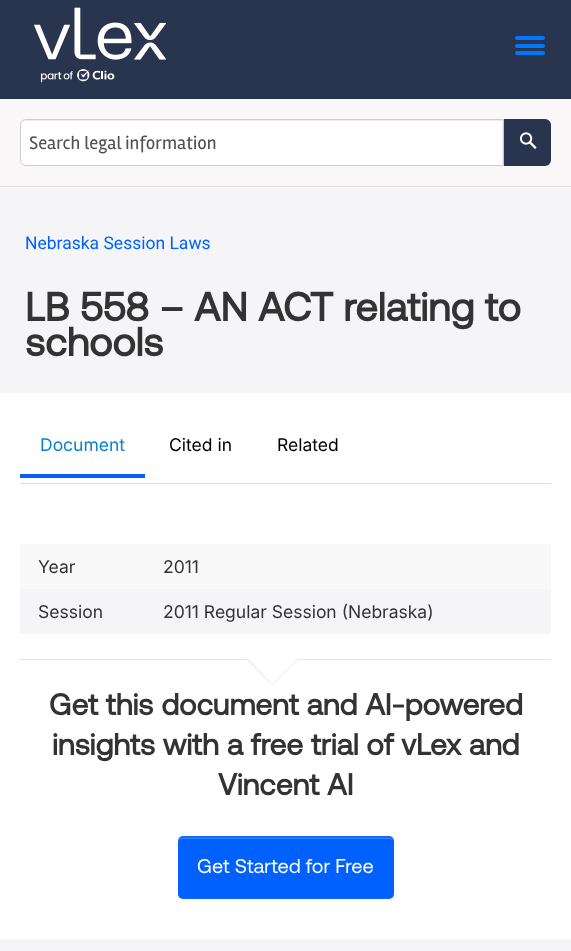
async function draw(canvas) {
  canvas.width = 571;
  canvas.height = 951;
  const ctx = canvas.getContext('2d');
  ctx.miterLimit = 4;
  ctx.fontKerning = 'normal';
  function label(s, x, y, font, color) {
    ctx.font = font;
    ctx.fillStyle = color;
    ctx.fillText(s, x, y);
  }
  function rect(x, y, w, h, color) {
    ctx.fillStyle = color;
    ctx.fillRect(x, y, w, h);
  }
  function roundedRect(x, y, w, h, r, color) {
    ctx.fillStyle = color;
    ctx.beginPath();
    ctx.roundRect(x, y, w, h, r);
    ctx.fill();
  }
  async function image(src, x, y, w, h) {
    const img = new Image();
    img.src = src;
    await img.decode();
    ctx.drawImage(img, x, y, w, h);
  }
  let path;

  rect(0, 0, 571, 951, '#f5f5f7');
  rect(0, 0, 571, 99, '#29354e');
  await image('assets/img1.png', 34, 7, 132, 76);
  roundedRect(515, 44, 30, 4, 2, '#07f');
  roundedRect(515, 36, 30, 4, 2, '#07f');
  roundedRect(515, 51, 30, 4, 2, '#07f');
  rect(0, 99, 571, 89, '#f9f7f7');
  rect(0, 186, 571, 1, '#e1e1e1');
  ctx.fillStyle = '#fff';
  ctx.beginPath();
  ctx.roundRect(20, 119, 484, 47, [6, 0, 0, 6]);
  ctx.fill();
  ctx.fillStyle = '#ececec';
  path = new Path2D('M26 121H502V165H503V120H26C23 120 21 122 21 125V126C21 123 23 121 26 121Z');
  ctx.fill(path);
  ctx.beginPath();
  ctx.roundRect(20.5, 119.5, 483, 46, [5.5, 0, 0, 5.5]);
  ctx.strokeStyle = '#ccc';
  ctx.stroke();
  label('Search legal information', 29, 149, '18.75px Rambla', '#505050');
  ctx.fillStyle = '#29354e';
  ctx.beginPath();
  ctx.roundRect(504, 119, 47, 47, [0, 6, 6, 0]);
  ctx.fill();
  await image('assets/img2.png', 519, 132, 18, 17);
  label('Nebraska Session Laws', 25, 249, '17.5px Roboto', '#0161ff');
  label('LB 558 – AN ACT relating to', 25, 321, 'bold 40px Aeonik', '#333');
  label('schools', 25, 356, 'bold 40px Aeonik', '#333');
  rect(0, 393, 571, 546, '#fff');
  rect(20, 483, 531, 1, '#ddd');
  label('Document', 40, 451, '17.5px Inter', '#0882cf');
  rect(20, 474, 125, 4, '#0161ff');
  label('Cited in', 169, 451, '17.5px Inter', '#000');
  label('Related', 277, 451, '17.5px Inter', '#000');
  rect(20, 544, 531, 45, '#f9f9f9');
  label('Year', 38, 573, '17.5px Inter', '#333');
  label('2011', 163, 573, '17.5px Inter', '#333');
  rect(20, 589, 531, 45, '#f5f5f7');
  label('Session', 38, 618, '17.5px Inter', '#333');
  label('2011 Regular Session (Nebraska)', 163, 618, '17.5px Inter', '#333');
  rect(20, 659, 531, 1, '#e7e7e7');
  path = new Path2D('M246 659H299L272 685Z');
  ctx.fill(path);
  ctx.fillStyle = '#fff';
  path = new Path2D('M248 659H298L272 684Z');
  ctx.fill(path);
  label('Get this document and AI-powered', 49, 715, 'bold 30px Aeonik', '#333');
  label('insights with a free trial of vLex and', 52, 755, 'bold 30px Aeonik', '#333');
  label('Vincent AI', 218, 795, 'bold 30px Aeonik', '#333');
  ctx.fillStyle = '#0000000d';
  ctx.filter = 'blur(1px)';
  ctx.beginPath();
  ctx.roundRect(178, 838, 216, 62, 5);
  ctx.fill();
  ctx.filter = 'none';
  roundedRect(178, 836, 216, 63, 5, '#0161ff');
  ctx.fillStyle = '#ffffff33';
  path = new Path2D('M182 839H389C391 839 393 840 394 841C393 839 391 838 389 838H182C180 838 178 839 178 841V894V895V851C178 847 176 839 182 839Z');
  ctx.fill(path);
  ctx.fillStyle = '#a8cbff1a';
  path = new Path2D('M182 838C180 838 178 839 178 841C178 839 179 837 181 836H391C392 837 393 838 394 839V840C393 839 391 838 389 838Z');
  ctx.fill(path);
  ctx.fillStyle = '#a4bddb1a';
  path = new Path2D('M181 899C179 898 178 896 178 894C178 896 180 898 182 898H389C391 898 393 897 394 895C394 897 392 899 391 899Z');
  ctx.fill(path);
  label('Get Started for Free', 197, 873, '20px Aeonik', '#fff');
}

draw(document.querySelector('canvas'));
